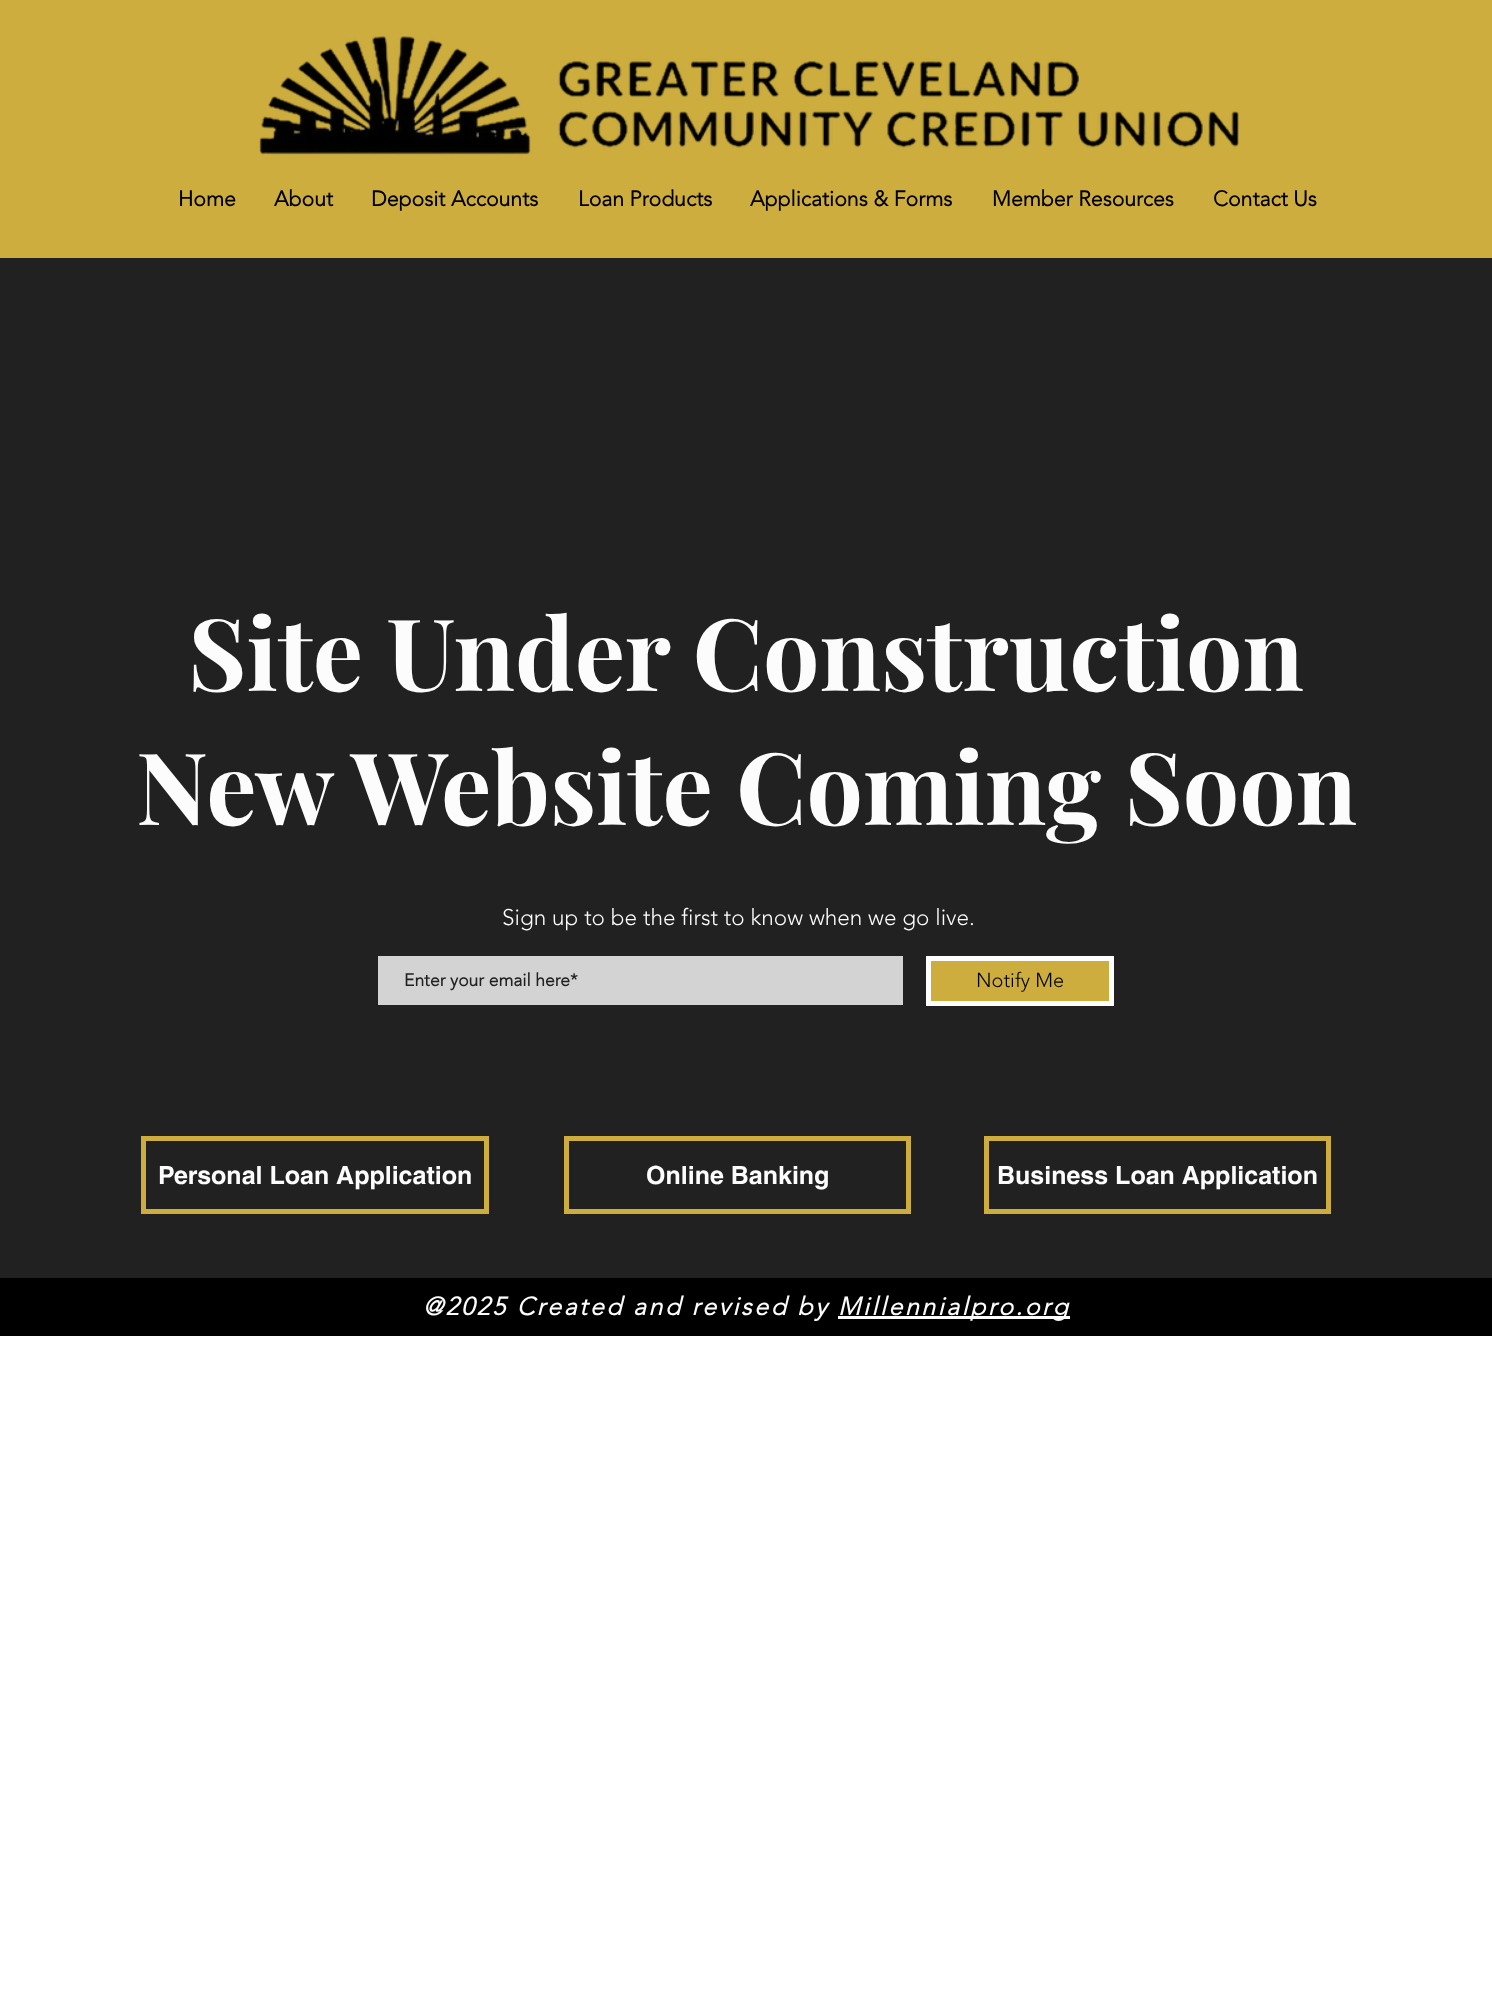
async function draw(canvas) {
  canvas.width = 1492;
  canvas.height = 1998;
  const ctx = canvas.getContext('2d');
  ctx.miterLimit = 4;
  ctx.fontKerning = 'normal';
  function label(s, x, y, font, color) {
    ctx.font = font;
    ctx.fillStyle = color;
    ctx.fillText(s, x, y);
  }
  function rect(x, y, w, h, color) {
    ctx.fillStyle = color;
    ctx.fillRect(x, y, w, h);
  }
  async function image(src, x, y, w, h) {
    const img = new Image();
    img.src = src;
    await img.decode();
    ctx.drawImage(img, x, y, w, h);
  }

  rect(0, 0, 1492, 1998, '#fff');
  rect(0, 0, 1492, 258, '#ccad3e');
  await image('assets/img1.png', 259, 36, 980, 119);
  label('Home', 178, 206, 'bold 21.25px "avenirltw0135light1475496"', '#000');
  label('About', 274, 206, 'bold 21.25px "avenirltw0135light1475496"', '#000');
  label('Deposit Accounts', 371, 206, 'bold 21.25px "avenirltw0135light1475496"', '#000');
  label('Loan Products', 578, 206, 'bold 21.25px "avenirltw0135light1475496"', '#000');
  label('Applications & Forms', 750, 206, 'bold 21.25px "avenirltw0135light1475496"', '#000');
  label('Member Resources', 992, 206, 'bold 21.25px "avenirltw0135light1475496"', '#000');
  label('Contact Us', 1213, 206, 'bold 21.25px "avenirltw0135light1475496"', '#000');
  rect(0, 258, 1492, 1020, '#212121');
  label('Site Under Construction', 188, 691, 'bold 100px Playfair Display', '#fcfcfc');
  label('New Website Coming Soon', 136, 825, 'bold 100px Playfair Display', '#fcfcfc');
  label('Sign up to be the first to know when we go live.', 502, 925, '300 22.5px "avenirltw0135light1475496"', '#fcfcfc');
  rect(378, 956, 525, 49, '#d3d3d3');
  label('Enter your email here*', 404, 986, 'bold 17.5px "avenirltw0135light1475496"', '#212121');
  ctx.fillStyle = '#ccad3e';
  ctx.beginPath();
  ctx.rect(928.5, 958.5, 183, 45);
  ctx.fill();
  ctx.strokeStyle = '#fff';
  ctx.lineWidth = 5;
  ctx.stroke();
  label('Notify Me', 976, 987, '300 20px "avenirltw0135light1475496"', '#000');
  ctx.strokeStyle = '#ccad3e';
  ctx.strokeRect(143.5, 1138.5, 343, 73);
  label('Personal Loan Application', 158, 1184, 'bold 25px helvetica', '#fcfcfc');
  ctx.strokeRect(566.5, 1138.5, 342, 73);
  label('Online Banking', 646, 1184, 'bold 25px helvetica', '#fcfcfc');
  ctx.strokeRect(986.5, 1138.5, 342, 73);
  label('Business Loan Application', 997, 1184, 'bold 25px helvetica', '#fcfcfc');
  rect(0, 1278, 1492, 58, '#000');
  ctx.letterSpacing = '2.5px';
  label('@2025 Created and revised by', 423, 1315, 'italic bold 25px "avenirltw0135light1475496"', '#fcfcfc');
  rect(838, 1316, 232, 3, '#fff');
  label('Millennialpro.org', 838, 1315, 'italic bold 25px "avenirltw0135light1475496"', '#fcfcfc');
}

draw(document.querySelector('canvas'));
